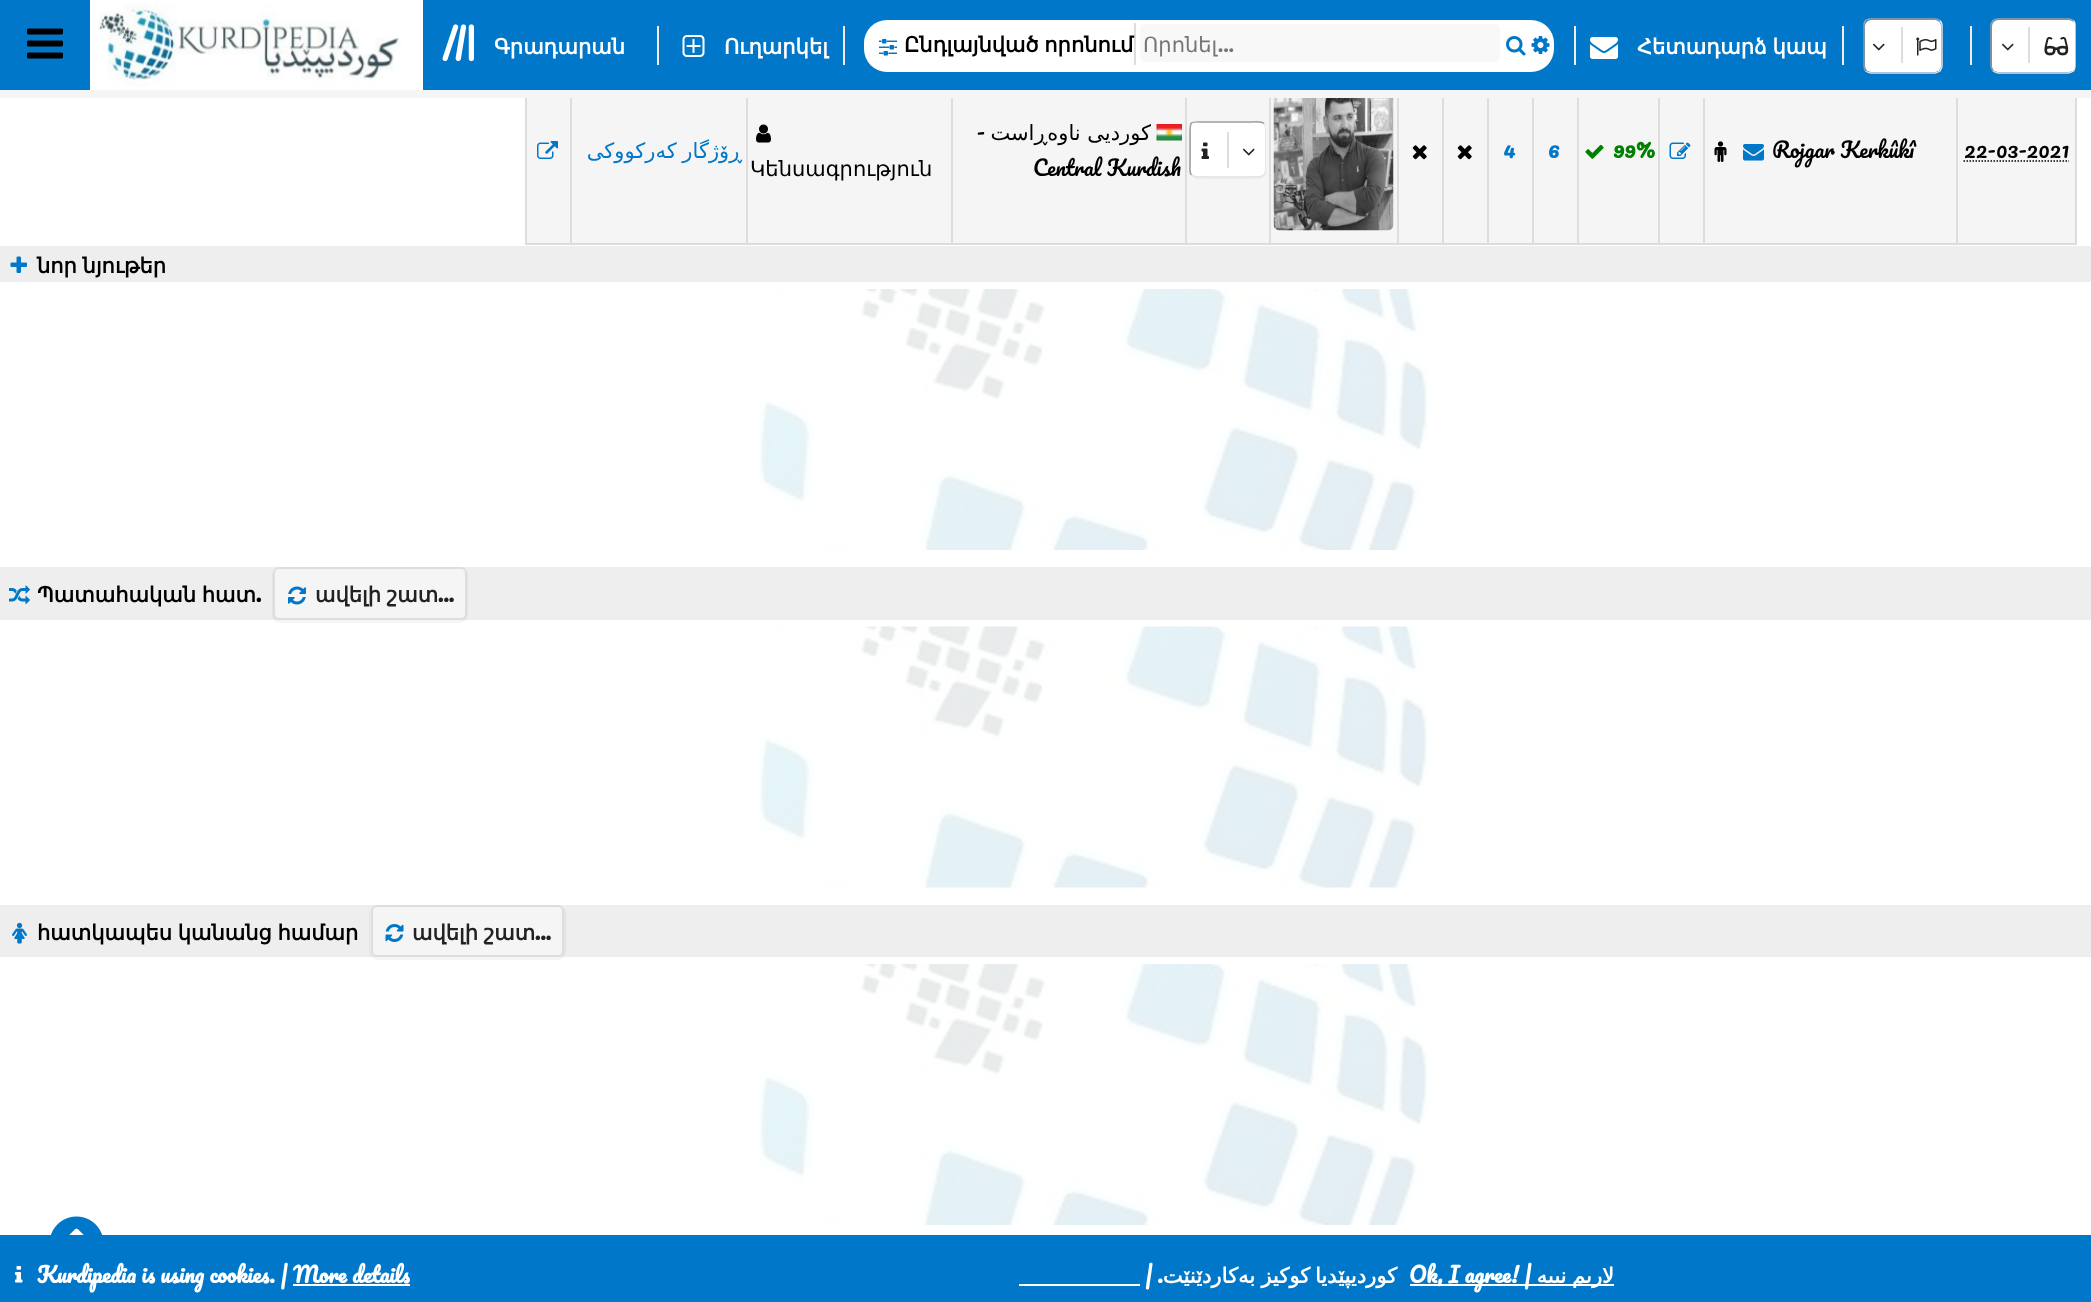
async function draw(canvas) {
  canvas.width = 2091;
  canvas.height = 1302;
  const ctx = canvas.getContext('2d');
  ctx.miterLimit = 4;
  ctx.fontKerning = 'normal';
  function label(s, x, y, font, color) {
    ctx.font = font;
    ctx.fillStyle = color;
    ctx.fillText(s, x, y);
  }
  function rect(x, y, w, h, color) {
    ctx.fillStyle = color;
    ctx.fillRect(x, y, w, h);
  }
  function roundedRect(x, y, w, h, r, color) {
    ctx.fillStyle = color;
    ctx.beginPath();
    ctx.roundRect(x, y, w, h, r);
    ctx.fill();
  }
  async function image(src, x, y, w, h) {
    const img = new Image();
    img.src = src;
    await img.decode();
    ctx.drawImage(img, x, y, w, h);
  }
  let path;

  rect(0, 0, 2091, 1302, '#fff');
  rect(0, 0, 2091, 90, '#0077c8');
  await image('assets/img1.png', 27, 28, 36, 31);
  rect(90, 0, 333, 90, '#fff');
  await image('assets/img2.png', 98, 3, 303, 84);
  await image('assets/img3.png', 442, 24, 32, 38);
  label('Գրադարան', 494, 54, 'bold 21px DejaVu Sans', '#fff');
  rect(657, 26, 2, 39, '#eee');
  await image('assets/img4.png', 682, 35, 23, 22);
  rect(843, 26, 2, 39, '#eee');
  label('Ուղարկել', 724, 54, 'bold 21px DejaVu Sans', '#fff');
  roundedRect(864, 20, 690, 52, 23, '#fff');
  await image('assets/img5.png', 879, 39, 18, 17);
  rect(1134, 23, 2, 42, '#ddd');
  ctx.wordSpacing = '-1px';
  label('Ընդլայնված որոնում', 904, 52, 'bold 21px DejaVu Sans', '#000');
  await image('assets/img6.png', 1140, 24, 360, 38);
  ctx.wordSpacing = '0px';
  label('Որոնել', 1143, 52, '21px DejaVu Sans', '#757575');
  label('...', 1218, 52, '21px Pacifico', '#757575');
  await image('assets/img7.png', 1506, 36, 20, 20);
  await image('assets/img8.png', 1531, 36, 19, 18);
  rect(1574, 26, 2, 39, '#eee');
  await image('assets/img9.png', 1590, 37, 28, 22);
  rect(1842, 26, 2, 39, '#eee');
  ctx.wordSpacing = '-1px';
  label('Հետադարձ կապ', 1637, 54, 'bold 21px DejaVu Sans', '#fff');
  path = new Path2D('M1940 20.5C1941 22 1942 23.5 1942 25.5V66C1942 68 1941 69.5 1940 71C1938.5 72 1937 73 1935 73H1870.5C1868.5 73 1867 72 1865.5 71');
  ctx.strokeStyle = '#eee';
  ctx.lineWidth = 1.5;
  ctx.stroke(path);
  path = new Path2D('M1865.5 71C1864.5 69.5 1864 68 1864 66V25.5C1864 23.5 1864.5 22 1865.5 20.5C1867 19.5 1868.5 19 1870.5 19H1935C1937 19 1938.5 19.5 1940 20.5');
  ctx.strokeStyle = '#9f9f9f';
  ctx.stroke(path);
  ctx.fillStyle = '#0000000a';
  path = new Path2D('M1865 22C1864 24 1863 26 1863 28V67C1863 71 1867 75 1871 75H1935C1939 75 1943 71 1943 67V28C1943 25 1941 23 1939 21C1940 22 1941 24 1941 26V66C1941 69 1938 72 1935 72H1870C1867 72 1864 69 1864 66V26Z');
  ctx.fill(path);
  roundedRect(1865, 20, 76, 52, 6, '#fff');
  await image('assets/img10.png', 1872, 43, 13, 8);
  rect(1901, 27, 2, 36, '#ddd');
  await image('assets/img11.png', 1916, 37, 21, 19);
  rect(1970, 26, 2, 39, '#eee');
  path = new Path2D('M2073.5 20.5C2074.5 22 2075 23.5 2075 25.5V66C2075 68 2074.5 69.5 2073.5 71C2072 72 2070.5 73 2068.5 73H1998C1996 73 1994.5 72 1993 71');
  ctx.strokeStyle = '#eee';
  ctx.stroke(path);
  path = new Path2D('M1993 71C1992 69.5 1991 68 1991 66V25.5C1991 23.5 1992 22 1993 20.5C1994.5 19.5 1996 19 1998 19H2068.5C2070.5 19 2072 19.5 2073.5 20.5');
  ctx.strokeStyle = '#9f9f9f';
  ctx.stroke(path);
  ctx.fillStyle = '#0000000a';
  path = new Path2D('M1992 24C1991 25 1991 26 1991 28V67C1991 71 1995 75 1999 75H2068C2072 75 2076 71 2076 67V28C2076 26 2075 24 2074 22C2075 25 2074 30 2074 32V52C2074 73 2077 72 2057 72H2010C1989 72 1992 73 1992 52Z');
  ctx.fill(path);
  roundedRect(1992, 20, 83, 52, 6, '#fff');
  await image('assets/img10.png', 2001, 43, 13, 8);
  rect(2028, 27, 2, 36, '#ddd');
  await image('assets/img12.png', 2044, 36, 25, 20);
  rect(0, 90, 2091, 8, '#f5f5f5');
  rect(527, 98, 1548, 145, '#f5f5f5');
  rect(2075, 98, 2, 147, '#ddd');
  rect(1956, 243, 120, 2, '#ddd');
  rect(1956, 98, 2, 147, '#ddd');
  rect(1703, 243, 255, 2, '#ddd');
  rect(1703, 98, 2, 147, '#ddd');
  rect(1658, 243, 46, 2, '#ddd');
  rect(1658, 98, 2, 147, '#ddd');
  rect(1577, 243, 82, 2, '#ddd');
  rect(1577, 98, 2, 147, '#ddd');
  rect(1532, 243, 46, 2, '#ddd');
  rect(1532, 98, 2, 147, '#ddd');
  rect(1487, 243, 46, 2, '#ddd');
  rect(1487, 98, 2, 147, '#ddd');
  rect(1442, 243, 46, 2, '#ddd');
  rect(1442, 98, 2, 147, '#ddd');
  rect(1397, 243, 46, 2, '#ddd');
  rect(1397, 98, 2, 147, '#ddd');
  rect(1269, 243, 129, 2, '#ddd');
  rect(1269, 98, 2, 147, '#ddd');
  rect(1185, 243, 86, 2, '#ddd');
  rect(1185, 98, 2, 147, '#ddd');
  rect(951, 243, 236, 2, '#ddd');
  rect(951, 98, 2, 147, '#ddd');
  rect(746, 243, 207, 2, '#ddd');
  rect(746, 98, 2, 147, '#ddd');
  rect(570, 243, 177, 2, '#ddd');
  rect(570, 98, 2, 147, '#ddd');
  rect(525, 243, 47, 2, '#ddd');
  rect(525, 98, 2, 147, '#ddd');
  await image('assets/img13.png', 537, 141, 21, 18);
  ctx.direction = 'rtl';
  label('ڕۆژگار کەرکووکی', 742, 158, '21px DejaVu Sans', '#0077c8');
  ctx.wordSpacing = '0px';
  label('-', 985, 140, '21px Pacifico', '#000');
  label('کوردیی ناوەڕاست', 1151, 140, '21px DejaVu Sans', '#000');
  await image('assets/img14.png', 1156, 124, 26, 17);
  ctx.direction = 'ltr';
  label('Central Kurdish', 1033, 176, '21px Pacifico', '#000');
  path = new Path2D('M1264 123.5C1266.5 125.5 1265 132.5 1265 134V165C1265 179 1265.5 176 1250 176H1205C1204 176 1194 178 1191.5 175');
  ctx.strokeStyle = '#eee';
  ctx.stroke(path);
  path = new Path2D('M1191.5 175C1189 173 1190 166 1190 165V134C1190 119.5 1190 122 1205 122H1250C1251.5 122 1261.5 120.5 1264 123.5');
  ctx.strokeStyle = '#9f9f9f';
  ctx.stroke(path);
  ctx.fillStyle = '#0000000a';
  path = new Path2D('M1262 124C1263 125 1264 127 1264 129V170C1264 173 1262 176 1258 176H1197C1194 176 1191 173 1191 170V129L1192 126C1191 127 1190 129 1190 131V171C1190 175 1194 179 1198 179H1258C1262 179 1266 175 1266 171V131C1266 128 1264 125 1262 124Z');
  ctx.fill(path);
  roundedRect(1191, 123, 74, 53, 6, '#fff');
  await image('assets/img15.png', 1201, 142, 8, 17);
  rect(1227, 132, 2, 36, '#ddd');
  await image('assets/img10.png', 1242, 148, 13, 8);
  await image('assets/img16.png', 1273, 98, 121, 133);
  await image('assets/img17.png', 1412, 145, 15, 15);
  await image('assets/img17.png', 1457, 145, 15, 15);
  label('4', 1503, 158, 'bold 21px Pacifico', '#0077c8');
  label('6', 1548, 158, 'bold 21px Pacifico', '#0077c8');
  await image('assets/img18.png', 1585, 144, 19, 15);
  label('99%', 1613, 158, 'bold 21px Pacifico', '#008000');
  await image('assets/img19.png', 1669, 142, 22, 17);
  await image('assets/img20.png', 1714, 141, 13, 21);
  await image('assets/img21.png', 1743, 144, 21, 17);
  label('Rojgar Kerkûkî', 1772, 158, '21px Pacifico', '#000');
  label('22-03-2021', 1964, 158, '21px Pacifico', '#000');
  path = new Path2D('M1963.5 161H2069');
  ctx.strokeStyle = '#000';
  ctx.setLineDash([1.5, 1.5]);
  ctx.stroke(path);
  await image('assets/img22.png', 756, 124, 15, 19);
  label('Կենսագրություն', 750, 176, '21px DejaVu Sans', '#000');
  rect(0, 246, 2091, 36, '#eee');
  await image('assets/img23.png', 10, 256, 17, 17);
  ctx.wordSpacing = '-1px';
  label('նոր նյութեր', 37, 273, 'bold 21px DejaVu Sans', '#000');
  await image('assets/img24.png', 760, 289, 668, 261);
  rect(0, 567, 2091, 53, '#eee');
  await image('assets/img25.png', 9, 585, 21, 20);
  label('Պատահական հատ', 37, 602, 'bold 21px DejaVu Sans', '#000');
  ctx.wordSpacing = '0px';
  label('.', 256, 602, 'bold 21px Pacifico', '#000');
  ctx.fillStyle = '#0000000a';
  path = new Path2D('M464 568C465 569 466 571 466 573V614C466 617 464 620 460 620H279C276 620 273 617 273 614V573L274 570C273 571 272 573 272 575V615C272 619 276 623 280 623H460C464 623 468 619 468 615V575C468 572 466 569 464 568Z');
  ctx.fill(path);
  ctx.fillStyle = '#f5f5f5';
  ctx.beginPath();
  ctx.roundRect(274, 568, 192, 51, 5);
  ctx.fill();
  ctx.strokeStyle = '#ddd';
  ctx.lineWidth = 2;
  ctx.setLineDash([]);
  ctx.stroke();
  await image('assets/img26.png', 288, 586, 18, 19);
  ctx.wordSpacing = '-1px';
  label('ավելի շատ', 315, 602, 'bold 21px DejaVu Sans', '#222');
  ctx.wordSpacing = '0px';
  label('...', 438, 602, 'bold 21px Pacifico', '#222');
  await image('assets/img27.png', 760, 626, 668, 262);
  rect(0, 905, 2091, 52, '#eee');
  await image('assets/img28.png', 12, 922, 15, 22);
  ctx.wordSpacing = '-1px';
  label('հատկապես կանանց համար', 37, 940, 'bold 21px DejaVu Sans', '#000');
  ctx.fillStyle = '#0000000a';
  path = new Path2D('M371 907C370 909 369 911 369 913V952C369 956 373 960 377 960H558C562 960 566 956 566 952V913C566 910 564 908 562 906C563 907 564 909 564 910V951C564 954 561 957 558 957H376C373 957 370 954 370 951V910Z');
  ctx.fill(path);
  ctx.fillStyle = '#f5f5f5';
  ctx.beginPath();
  ctx.roundRect(372, 906, 191, 50, 5);
  ctx.fill();
  ctx.stroke();
  await image('assets/img29.png', 385, 924, 19, 18);
  label('ավելի շատ', 412, 940, 'bold 21px DejaVu Sans', '#222');
  ctx.wordSpacing = '0px';
  label('...', 535, 940, 'bold 21px Pacifico', '#222');
  await image('assets/img30.png', 51, 1216, 51, 19);
  await image('assets/img24.png', 760, 964, 668, 261);
  rect(0, 1235, 2091, 67, '#0077c8');
  await image('assets/img31.png', 15, 1266, 8, 17);
  label('Kurdipedia is using cookies. | More details', 37, 1283, 'bold 21px Pacifico', '#fff');
  rect(293, 1284, 117, 2, '#fff');
  rect(1019, 1284, 121, 2, '#fff');
  ctx.direction = 'rtl';
  label('. |', 1163, 1283, 'bold 21px Pacifico', '#fff');
  label('بەکاردێنێت', 1255, 1283, 'bold 21px DejaVu Sans', '#fff');
  label('کوکیز', 1310, 1283, 'bold 21px DejaVu Sans', '#fff');
  label('کوردیپێدیا', 1397, 1283, 'bold 21px DejaVu Sans', '#fff');
  rect(1410, 1284, 204, 2, '#fff');
  ctx.direction = 'ltr';
  label('Ok, I agree! |', 1409, 1283, 'bold 21px Pacifico', '#fff');
  ctx.wordSpacing = '-1px';
  ctx.direction = 'rtl';
  label('لاریم نییە', 1614, 1283, 'bold 21px DejaVu Sans', '#fff');
}

draw(document.querySelector('canvas'));
